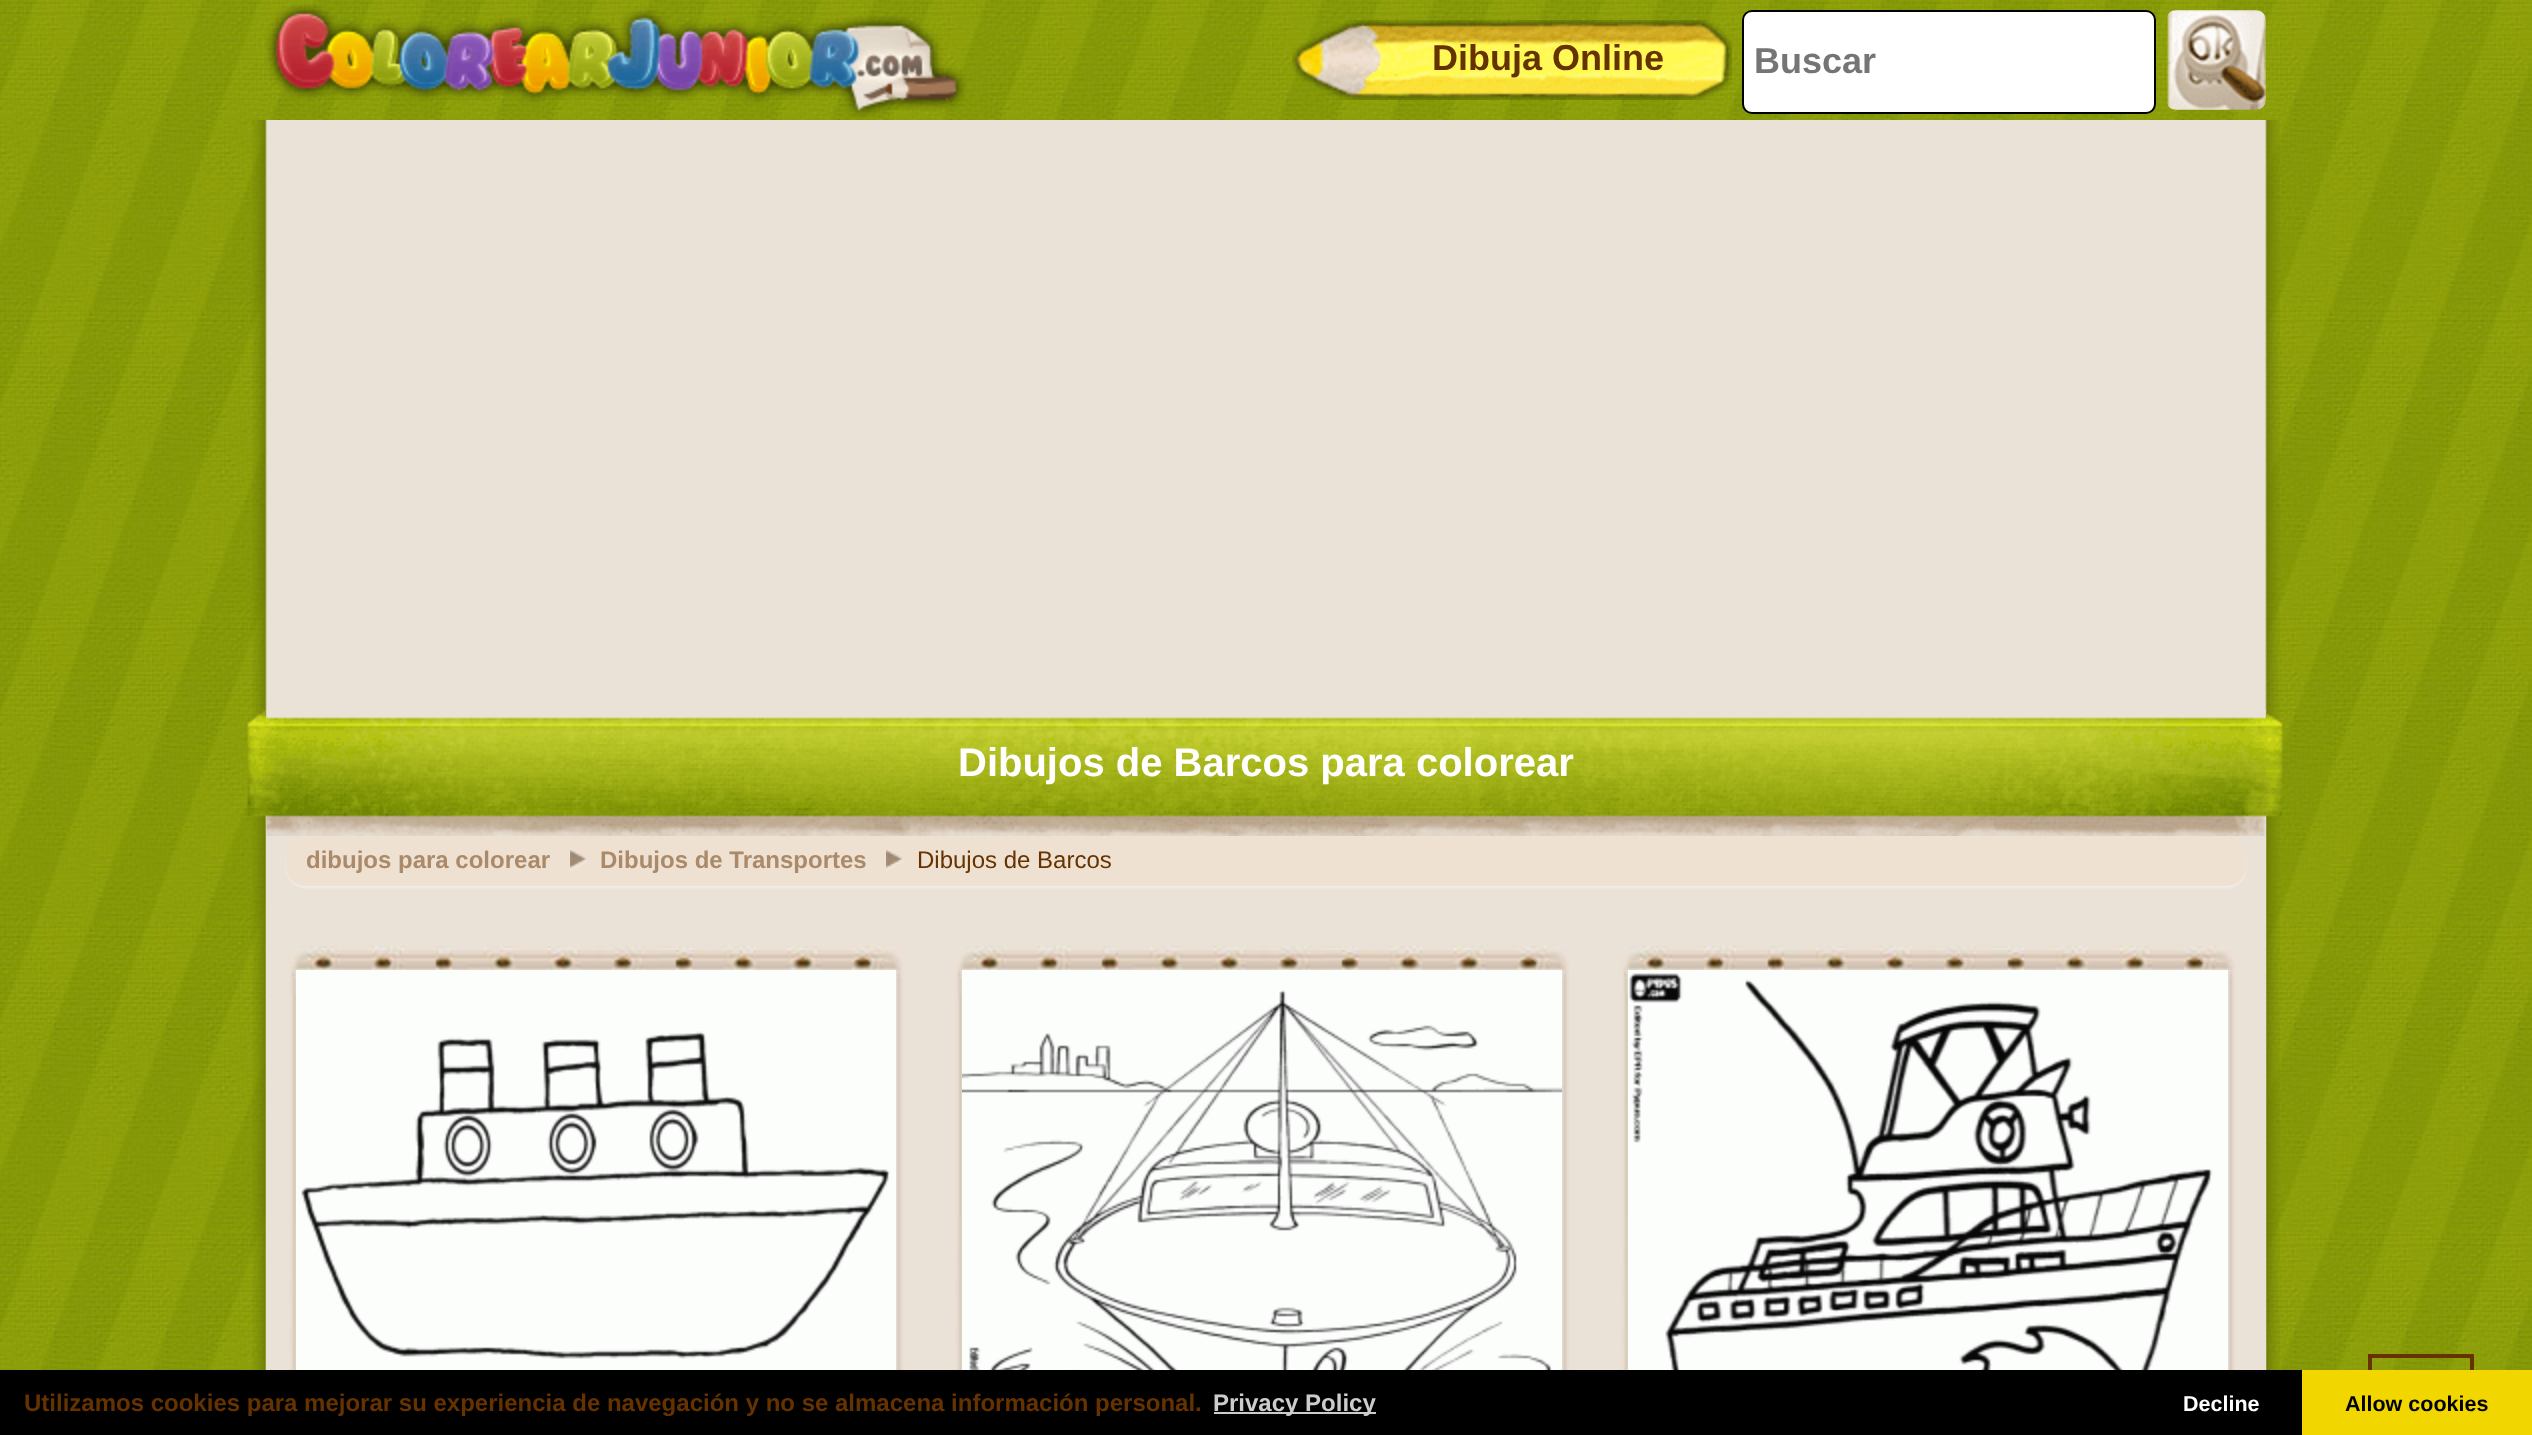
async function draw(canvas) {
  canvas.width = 2532;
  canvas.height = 1435;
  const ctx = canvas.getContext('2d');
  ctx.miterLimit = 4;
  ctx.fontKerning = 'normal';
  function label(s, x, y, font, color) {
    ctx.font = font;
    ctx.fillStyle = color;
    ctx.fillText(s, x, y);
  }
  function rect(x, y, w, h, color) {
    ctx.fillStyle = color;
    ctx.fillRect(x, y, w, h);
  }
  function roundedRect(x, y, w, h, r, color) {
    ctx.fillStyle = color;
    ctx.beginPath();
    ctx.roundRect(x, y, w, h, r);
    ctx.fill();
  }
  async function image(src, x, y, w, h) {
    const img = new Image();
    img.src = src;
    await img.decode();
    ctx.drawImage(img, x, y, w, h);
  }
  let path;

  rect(0, 0, 2532, 1435, '#fff');
  await image('assets/img1.png', 0, 0, 2532, 1370);
  await image('assets/img2.png', 266, 4, 700, 114);
  await image('assets/img3.png', 1292, 20, 440, 80);
  label('Dibuja Online', 1432, 70, 'bold 36px Liberation Sans', '#630');
  ctx.fillStyle = '#fff';
  ctx.beginPath();
  ctx.roundRect(1743, 11, 412, 102, 9);
  ctx.fill();
  ctx.strokeStyle = '#000';
  ctx.lineWidth = 2;
  ctx.stroke();
  label('Buscar', 1754, 73, 'bold 36px Liberation Sans', '#757575');
  await image('assets/img4.png', 2167, 10, 99, 100);
  await image('assets/img5.png', 252, 120, 2028, 1250);
  rect(266, 710, 2000, 660, '#eae2d7');
  await image('assets/img6.png', 247, 710, 2036, 126);
  label('Dibujos de Barcos para colorear', 958, 776, 'bold 40px Liberation Sans', '#fff');
  ctx.save();
  path = new Path2D('M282 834H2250V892H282ZM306 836H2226C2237 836 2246 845 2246 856V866C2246 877 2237 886 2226 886H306C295 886 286 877 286 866V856C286 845 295 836 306 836Z');
  ctx.clip(path, 'evenodd');
  ctx.fillStyle = '#ffffff66';
  ctx.filter = 'blur(1px)';
  ctx.beginPath();
  ctx.roundRect(286, 838, 1960, 50, 20);
  ctx.fill();
  ctx.filter = 'none';
  ctx.restore();
  roundedRect(286, 836, 1960, 50, 20, '#f0e1d1cc');
  label('dibujos para colorear', 306, 868, 'bold 24px Liberation Sans', '#aa8a69');
  await image('assets/img7.png', 570, 850, 18, 20);
  label('Dibujos de Transportes', 600, 868, 'bold 24px Liberation Sans', '#aa8a69');
  await image('assets/img7.png', 886, 850, 18, 20);
  label('Dibujos de Barcos', 917, 868, '24px Liberation Sans', '#630');
  await image('assets/img8.png', 289, 946, 614, 424);
  await image('assets/img9.png', 296, 970, 600, 400);
  await image('assets/img8.png', 955, 946, 614, 424);
  await image('assets/img10.png', 962, 970, 600, 400);
  await image('assets/img8.png', 1621, 946, 614, 424);
  await image('assets/img11.png', 1628, 970, 600, 400);
  ctx.strokeStyle = '#630';
  ctx.lineWidth = 4;
  ctx.strokeRect(2370, 1356, 102, 46);
  rect(0, 1370, 2302, 65, '#000');
  label('Utilizamos cookies para mejorar su experiencia de navegación y no se almacena información personal.', 24, 1411, 'bold 24px Liberation Sans', '#630');
  rect(1214, 1412, 162, 2, '#ccc');
  label('Privacy Policy', 1213, 1411, 'bold 24px Liberation Sans', '#ccc');
  label('Decline', 2183, 1411, 'bold 21.5px Liberation Sans', '#fff');
  rect(2302, 1370, 230, 65, '#f1d600');
  label('Allow cookies', 2345, 1411, 'bold 21.5px Liberation Sans', '#000');
}

draw(document.querySelector('canvas'));
